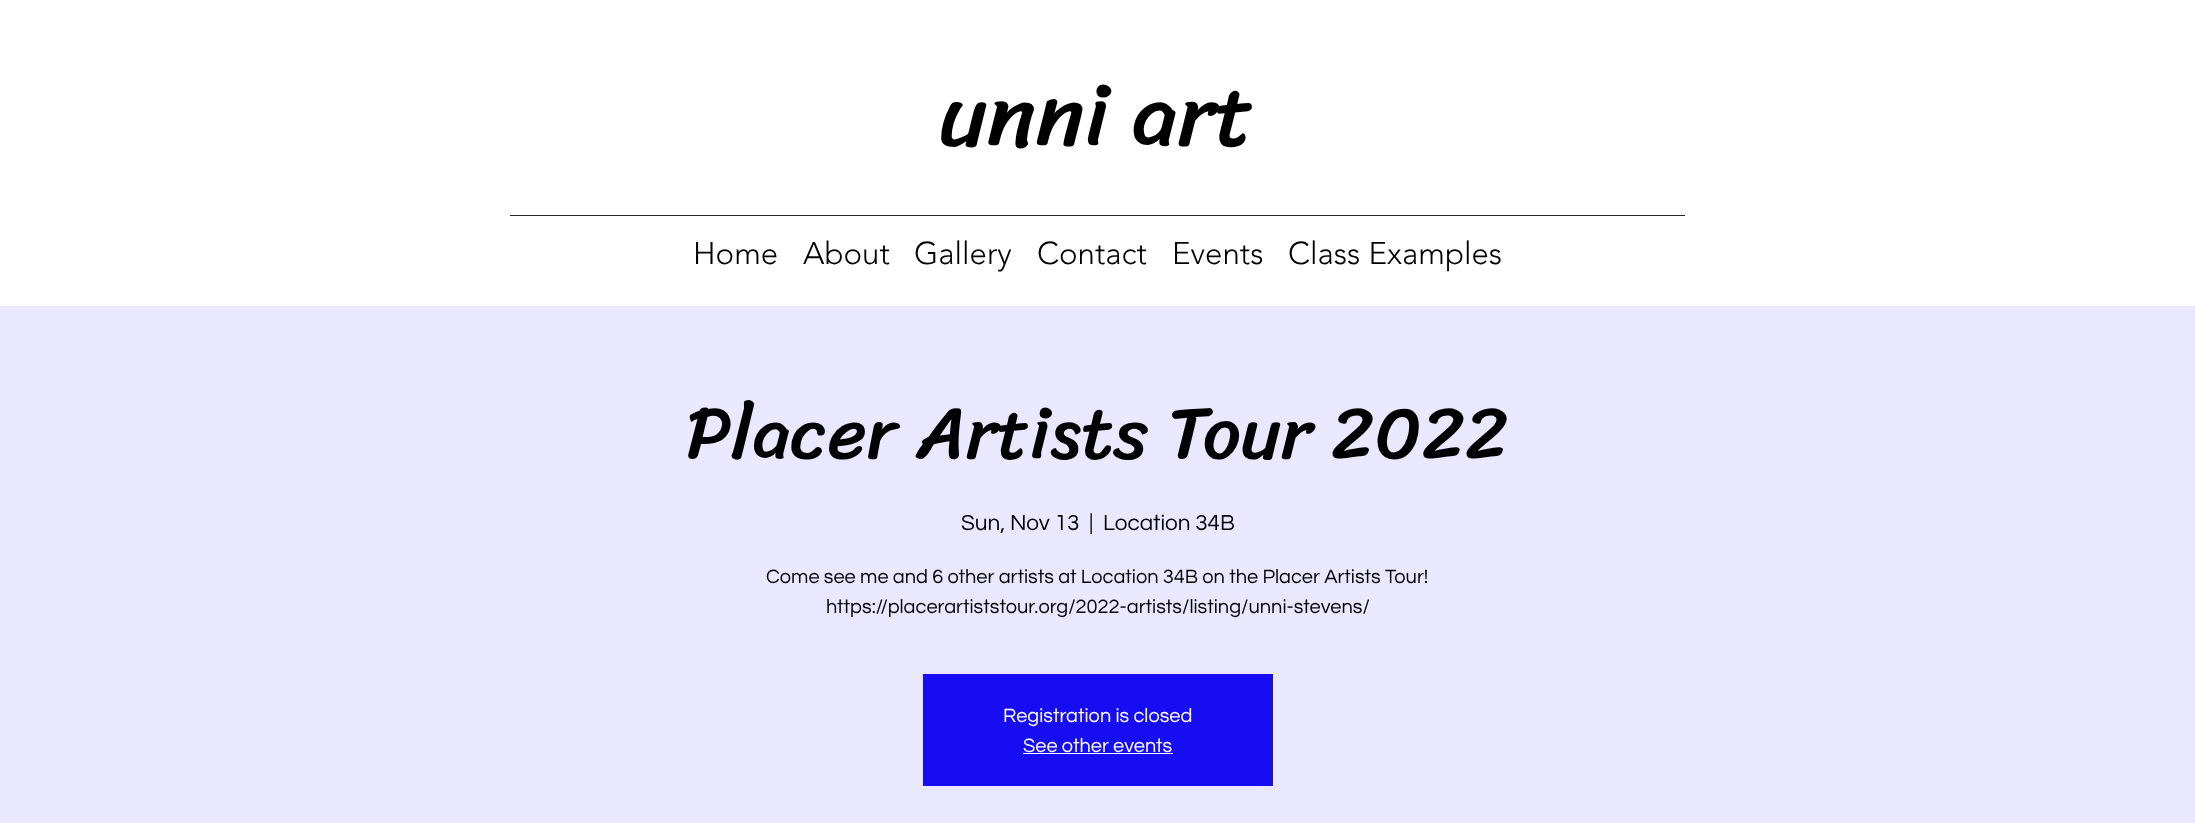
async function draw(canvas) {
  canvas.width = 2195;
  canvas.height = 823;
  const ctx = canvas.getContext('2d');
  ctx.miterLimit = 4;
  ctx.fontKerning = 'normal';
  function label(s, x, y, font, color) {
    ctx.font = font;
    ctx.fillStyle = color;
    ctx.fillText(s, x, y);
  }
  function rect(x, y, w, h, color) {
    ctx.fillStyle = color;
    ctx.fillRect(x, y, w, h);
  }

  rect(0, 0, 2195, 823, '#fff');
  label('unni art', 939, 145, '90px Sriracha', '#000');
  rect(510, 215, 1175, 1, '#262626');
  label('Home', 693, 264, '300 31.25px "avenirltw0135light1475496"', '#000');
  label('About', 803, 264, '300 31.25px "avenirltw0135light1475496"', '#000');
  label('Gallery', 914, 264, '300 31.25px "avenirltw0135light1475496"', '#000');
  label('Contact', 1037, 264, '300 31.25px "avenirltw0135light1475496"', '#000');
  label('Events', 1172, 264, '300 31.25px "avenirltw0135light1475496"', '#000');
  label('Class Examples', 1288, 264, '300 31.25px "avenirltw0135light1475496"', '#000');
  rect(0, 306, 2195, 517, '#e9e8ff');
  label('Placer Artists Tour 2022', 686, 458, '75px Sriracha', '#000');
  label('Sun, Nov 13', 961, 530, '22.5px Questrial', '#000');
  label('|', 1089, 530, '22.5px Questrial', '#000');
  label('Location 34B', 1103, 530, '22.5px Questrial', '#000');
  label('Come see me and 6 other artists at Location 34B on the Placer Artists Tour!', 766, 583, '20px Questrial', '#000');
  label('https://placerartiststour.org/2022-artists/listing/unni-stevens/', 826, 613, '20px Questrial', '#000');
  rect(923, 674, 350, 112, '#170df2');
  label('Registration is closed', 1003, 722, '20px Questrial', '#fff');
  label('See other events', 1023, 752, '20px Questrial', '#fff');
  rect(1023, 753, 150, 1, '#fff');
}

draw(document.querySelector('canvas'));
